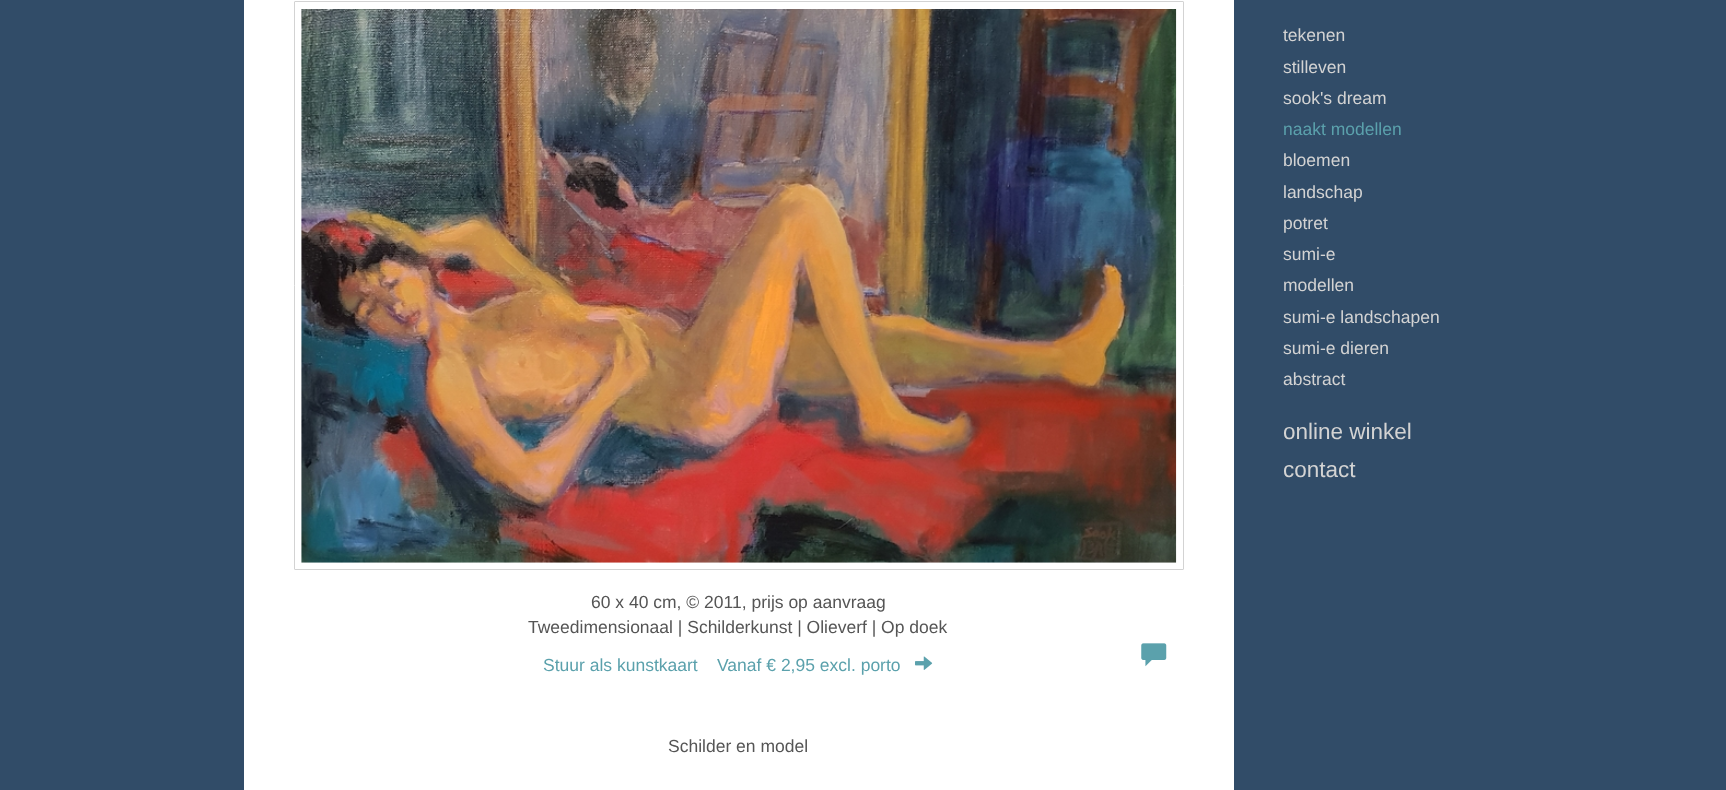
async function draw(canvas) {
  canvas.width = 1726;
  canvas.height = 790;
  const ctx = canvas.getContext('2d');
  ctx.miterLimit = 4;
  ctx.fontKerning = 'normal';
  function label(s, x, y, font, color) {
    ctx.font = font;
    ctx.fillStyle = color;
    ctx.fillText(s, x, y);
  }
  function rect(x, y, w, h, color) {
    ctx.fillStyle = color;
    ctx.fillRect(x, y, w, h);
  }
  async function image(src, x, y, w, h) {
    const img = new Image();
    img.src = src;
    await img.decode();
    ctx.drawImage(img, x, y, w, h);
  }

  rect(0, 0, 1726, 790, '#314c68');
  rect(244, 0, 990, 790, '#fff');
  label('tekenen', 1283, 41, '17.5px Liberation Sans', '#d3d3d3');
  label('stilleven', 1283, 73, '17.5px Liberation Sans', '#d3d3d3');
  label('sook\'s dream', 1283, 104, '17.5px Liberation Sans', '#d3d3d3');
  label('naakt modellen', 1283, 135, '17.5px Liberation Sans', '#5ba1ac');
  label('bloemen', 1283, 166, '17.5px Liberation Sans', '#d3d3d3');
  label('landschap', 1283, 198, '17.5px Liberation Sans', '#d3d3d3');
  label('potret', 1283, 229, '17.5px Liberation Sans', '#d3d3d3');
  label('sumi-e', 1283, 260, '17.5px Liberation Sans', '#d3d3d3');
  label('modellen', 1283, 291, '17.5px Liberation Sans', '#d3d3d3');
  label('sumi-e landschapen', 1283, 323, '17.5px Liberation Sans', '#d3d3d3');
  label('sumi-e dieren', 1283, 354, '17.5px Liberation Sans', '#d3d3d3');
  label('abstract', 1283, 385, '17.5px Liberation Sans', '#d3d3d3');
  label('online winkel', 1283, 439, '22.5px Liberation Sans', '#d3d3d3');
  label('contact', 1283, 477, '22.5px Liberation Sans', '#d3d3d3');
  ctx.beginPath();
  ctx.roundRect(294.5, 1.5, 889, 568, 0.5);
  ctx.strokeStyle = '#d3d3d3';
  ctx.stroke();
  await image('assets/img1.png', 301, 9, 876, 554);
  label('60 x 40 cm, © 2011, prijs op aanvraag', 591, 608, '17.5px Liberation Sans', '#555');
  label('Tweedimensionaal | Schilderkunst | Olieverf | Op doek', 528, 633, '17.5px Liberation Sans', '#555');
  label('Stuur als kunstkaart', 543, 671, '17.5px Liberation Sans', '#5ba1ac');
  label('Vanaf € 2,95 excl. porto', 717, 671, '17.5px Liberation Sans', '#5ba1ac');
  await image('assets/img2.png', 915, 656, 18, 14);
  await image('assets/img3.png', 1141, 643, 26, 24);
  label('Schilder en model', 668, 752, '17.5px Liberation Sans', '#555');
}

draw(document.querySelector('canvas'));
